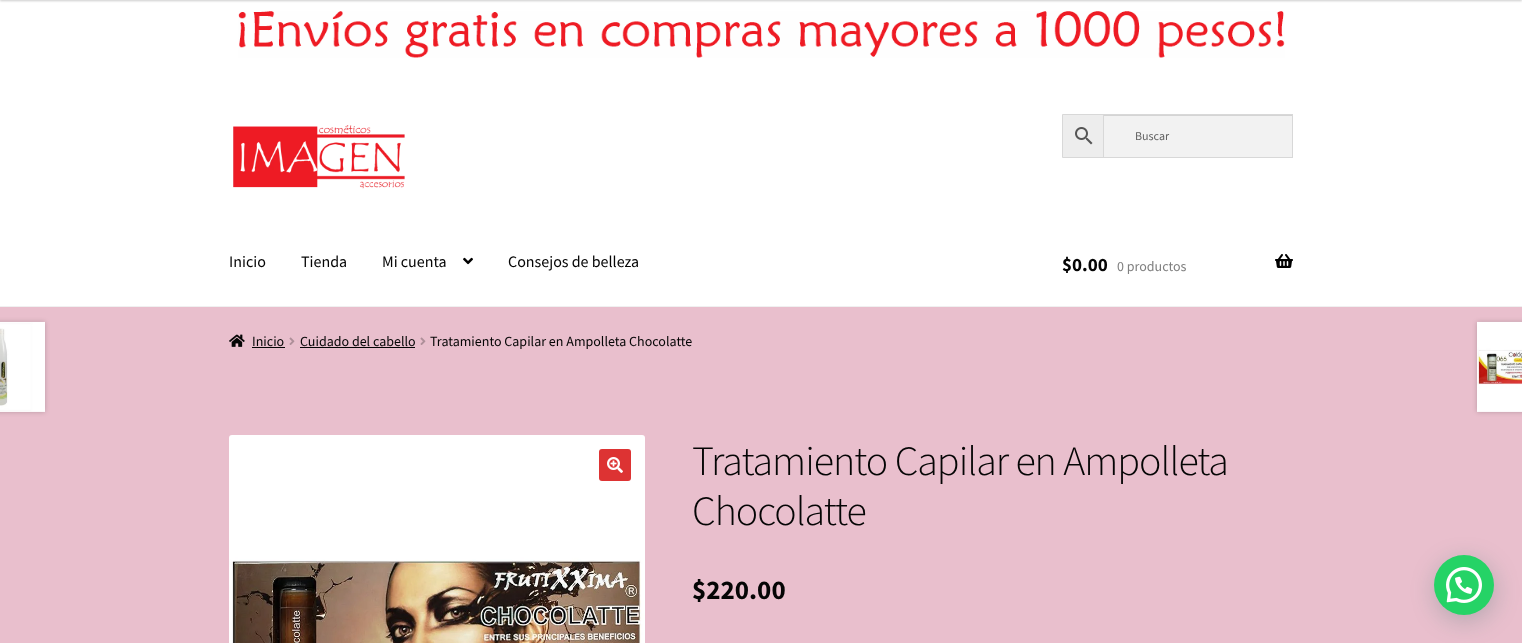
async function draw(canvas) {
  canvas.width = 1522;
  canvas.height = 643;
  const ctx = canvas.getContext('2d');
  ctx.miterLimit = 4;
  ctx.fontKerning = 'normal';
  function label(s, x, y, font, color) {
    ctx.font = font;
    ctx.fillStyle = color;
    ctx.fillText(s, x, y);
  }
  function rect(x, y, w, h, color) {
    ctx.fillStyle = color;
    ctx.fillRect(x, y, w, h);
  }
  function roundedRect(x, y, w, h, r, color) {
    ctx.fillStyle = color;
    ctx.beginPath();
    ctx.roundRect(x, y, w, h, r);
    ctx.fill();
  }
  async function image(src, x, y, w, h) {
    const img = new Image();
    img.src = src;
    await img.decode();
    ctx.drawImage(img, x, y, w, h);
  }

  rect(0, 0, 1522, 643, '#e9bfcd');
  rect(0, 0, 1522, 306, '#fff');
  await image('assets/img1.png', 238, 11, 1047, 47);
  ctx.fillStyle = '#00000033';
  ctx.filter = 'blur(1px)';
  ctx.beginPath();
  ctx.rect(0, -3, 1522, 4);
  ctx.fill();
  ctx.filter = 'none';
  rect(0, 306, 1522, 1, '#f0f0f0');
  await image('assets/img2.png', 233, 125, 172, 64);
  ctx.fillStyle = '#ededed';
  ctx.beginPath();
  ctx.rect(1062.5, 114.5, 41, 43);
  ctx.fill();
  ctx.strokeStyle = '#d8d8d8';
  ctx.stroke();
  await image('assets/img3.png', 1075, 127, 18, 18);
  rect(1104, 116, 188, 41, '#f2f2f2');
  rect(1104, 115, 188, 1, '#d4d4d4');
  ctx.strokeRect(1103.5, 114.5, 189, 43);
  label('Buscar', 1135, 140, '12px Source Sans Pro', '#616161');
  label('Inicio', 229, 267, '16px Source Sans Pro', '#050505');
  label('Tienda', 301, 267, '16px Source Sans Pro', '#050505');
  label('Mi cuenta', 382, 267, '16px Source Sans Pro', '#050505');
  await image('assets/img4.png', 463, 257, 10, 8);
  label('Consejos de belleza', 508, 267, '16px Source Sans Pro', '#050505');
  label('$0.00', 1062, 271, 'bold 19px Source Sans Pro', '#050505');
  label('0 productos', 1117, 271, '14px Source Sans Pro', '#808080');
  await image('assets/img5.png', 1275, 254, 18, 14);
  await image('assets/img6.png', 229, 334, 16, 13);
  label('Inicio', 252, 346, '14px Source Sans Pro', '#050505');
  rect(252, 347, 33, 1, '#050505');
  await image('assets/img7.png', 289, 337, 6, 8);
  label('Cuidado del cabello', 300, 346, '14px Source Sans Pro', '#050505');
  rect(300, 347, 115, 1, '#050505');
  await image('assets/img7.png', 420, 337, 6, 8);
  label('Tratamiento Capilar en Ampolleta Chocolatte', 430, 346, '14px Source Sans Pro', '#050505');
  ctx.fillStyle = '#00000033';
  ctx.filter = 'blur(2.5px)';
  ctx.beginPath();
  ctx.rect(-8, 322, 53, 90);
  ctx.fill();
  ctx.filter = 'none';
  await image('assets/img8.png', 0, 321, 45, 91);
  ctx.filter = 'blur(2.5px)';
  ctx.beginPath();
  ctx.rect(1477, 322, 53, 90);
  ctx.fill();
  ctx.filter = 'none';
  await image('assets/img9.png', 1477, 321, 45, 91);
  await image('assets/img10.png', 229, 435, 416, 208);
  roundedRect(599, 449, 32, 32, 3, '#d33');
  await image('assets/img11.png', 607, 457, 16, 16);
  ctx.letterSpacing = '-1px';
  label('Tratamiento Capilar en Ampolleta', 692, 475, '300 41.9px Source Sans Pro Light', '#050505');
  label('Chocolatte', 692, 525, '300 41.9px Source Sans Pro Light', '#050505');
  ctx.letterSpacing = '0px';
  label('$220.00', 692, 599, 'bold 27px Source Sans Pro', '#050505');
  ctx.fillStyle = '#075e543d';
  ctx.filter = 'blur(12px)';
  ctx.beginPath();
  ctx.roundRect(1435, 561, 60, 60, 30);
  ctx.fill();
  ctx.filter = 'none';
  ctx.fillStyle = '#25d366';
  ctx.beginPath();
  ctx.arc(1464, 585, 30, 0, 2 * Math.PI);
  ctx.fill();
  await image('assets/img12.png', 1446, 567, 36, 36);
}

draw(document.querySelector('canvas'));
